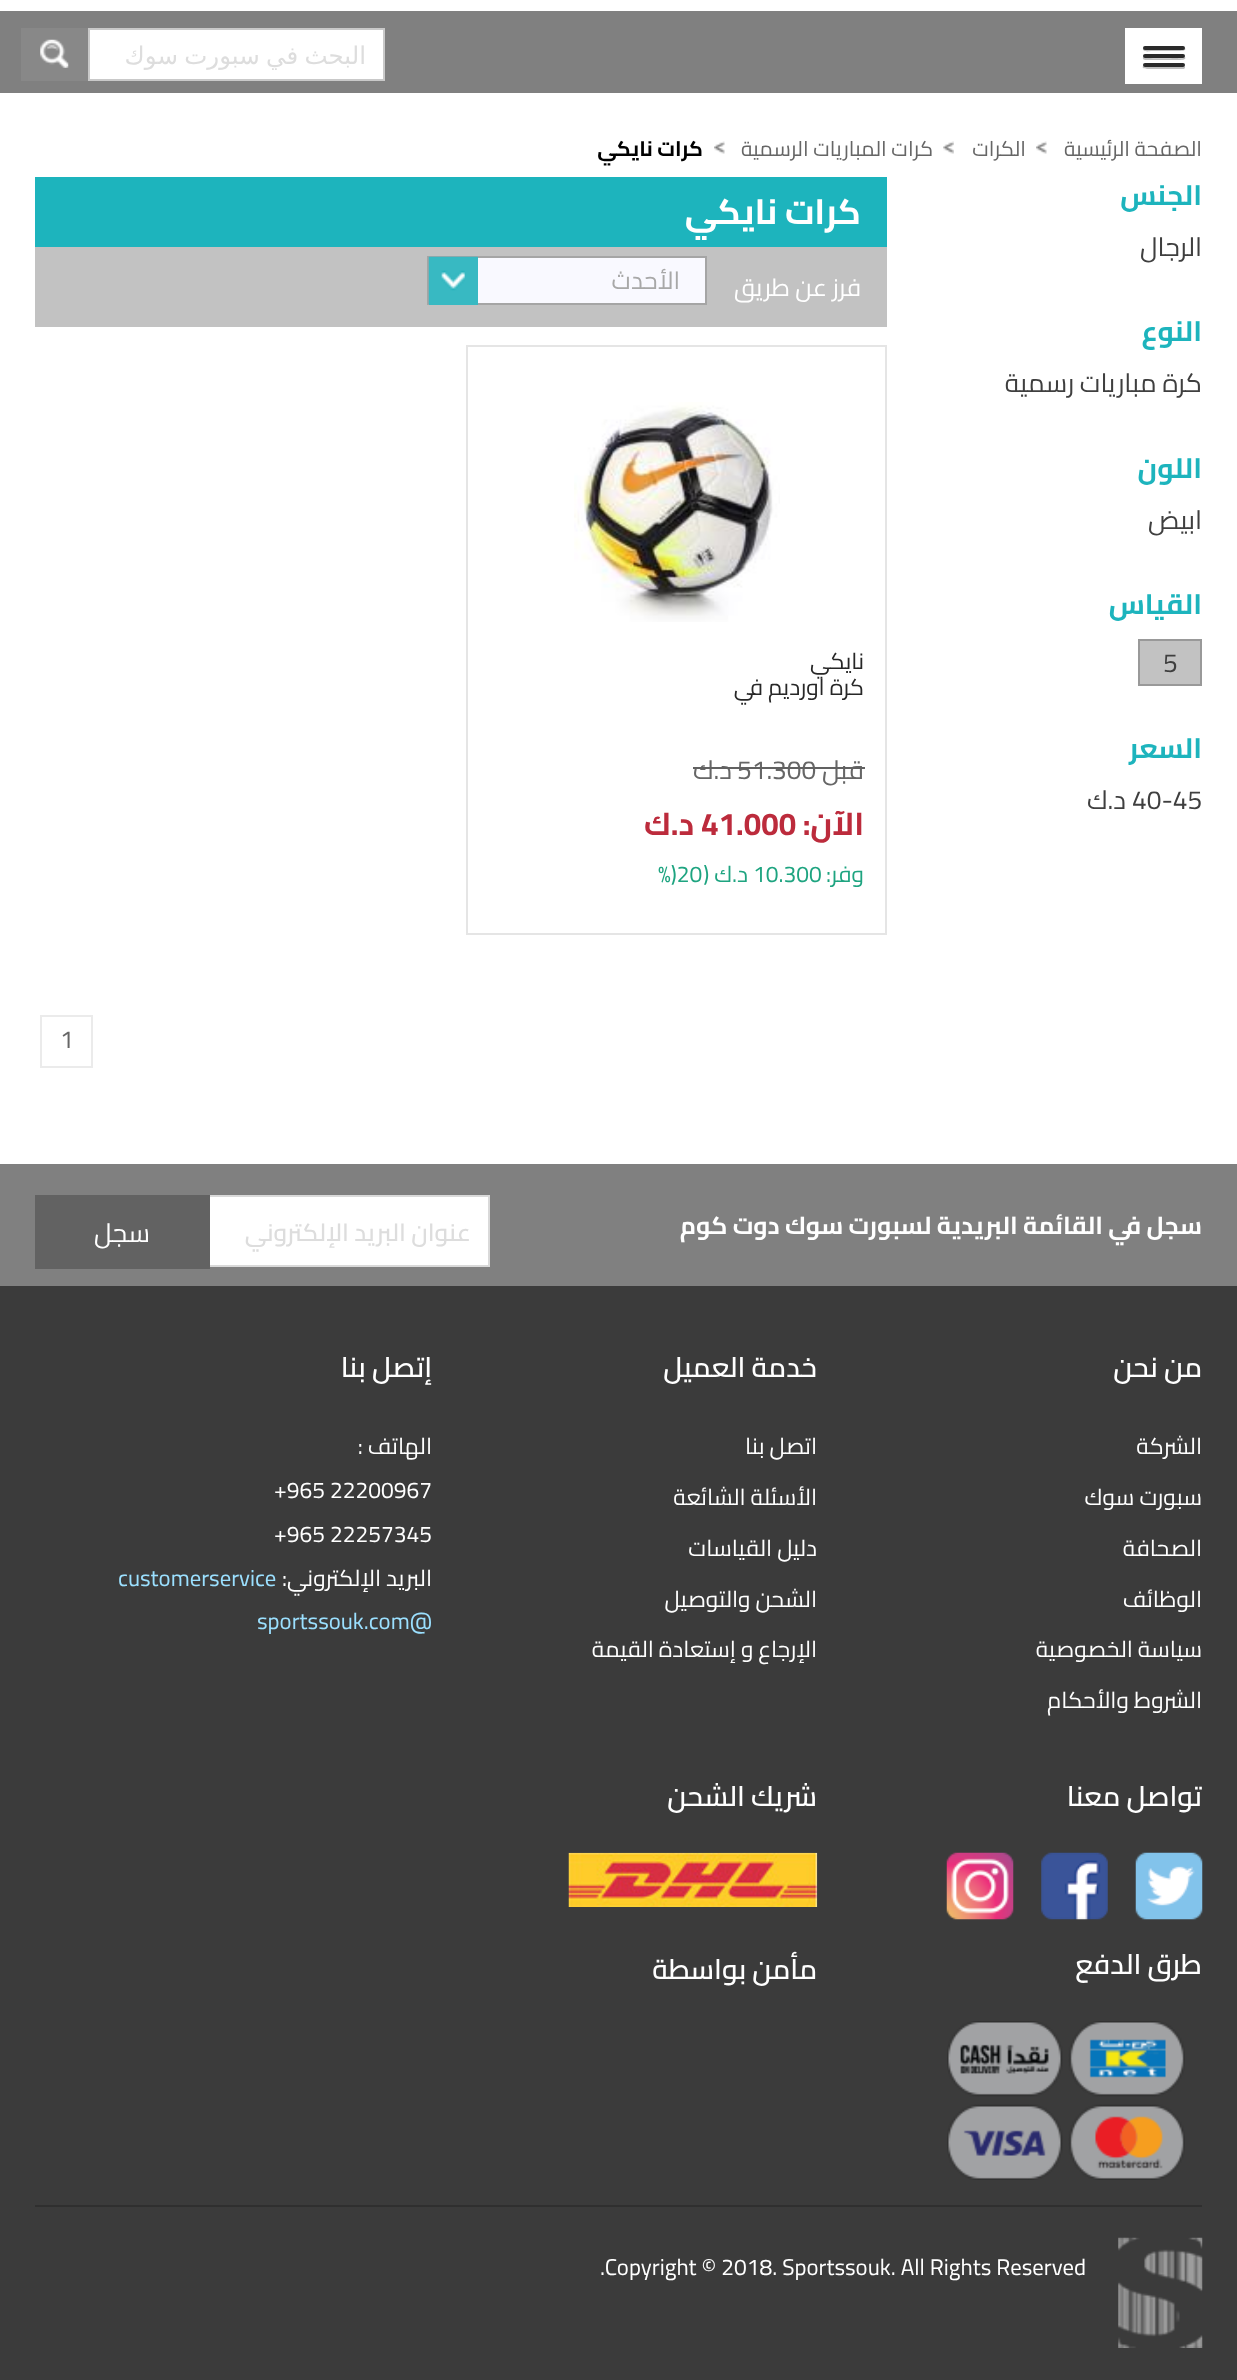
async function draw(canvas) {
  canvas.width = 1237;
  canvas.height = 2380;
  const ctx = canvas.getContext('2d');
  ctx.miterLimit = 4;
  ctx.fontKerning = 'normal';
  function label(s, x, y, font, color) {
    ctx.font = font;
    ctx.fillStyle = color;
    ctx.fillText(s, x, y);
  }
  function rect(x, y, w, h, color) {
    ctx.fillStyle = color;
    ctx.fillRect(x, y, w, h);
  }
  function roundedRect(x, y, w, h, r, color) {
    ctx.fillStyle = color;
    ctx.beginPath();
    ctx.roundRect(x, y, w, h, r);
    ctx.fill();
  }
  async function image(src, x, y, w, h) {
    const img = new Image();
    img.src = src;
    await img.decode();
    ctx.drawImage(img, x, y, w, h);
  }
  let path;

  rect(0, 0, 1237, 2380, '#fff');
  rect(0, 11, 1237, 82, '#808080');
  rect(1125, 28, 77, 56, '#fff');
  ctx.fillStyle = '#bfbfbf';
  path = new Path2D('M1143 48C1142 53 1151 51 1151 51H1177C1181 51 1187 51 1185 48L1183 49H1144Z');
  ctx.fill(path);
  roundedRect(1143, 46, 42, 4, 2, '#2a2a2a');
  ctx.fillStyle = '#bfbfbf';
  path = new Path2D('M1143 57C1142 61 1147 60 1151 60H1177C1181 60 1187 60 1185 57C1184 59 1178 58 1177 58C1173 58 1144 59 1143 57Z');
  ctx.fill(path);
  roundedRect(1143, 54, 42, 4, 2, '#2a2a2a');
  ctx.fillStyle = '#bfbfbf';
  path = new Path2D('M1143 66C1141 69 1147 69 1151 69H1183C1185 69 1186 67 1184 66C1183 68 1179 66 1177 66C1173 66 1145 67 1143 66Z');
  ctx.fill(path);
  roundedRect(1143, 63, 42, 4, 2, '#2a2a2a');
  ctx.fillStyle = '#fff';
  ctx.beginPath();
  ctx.rect(89, 29, 295, 51);
  ctx.fill();
  ctx.strokeStyle = '#c9c9c9';
  ctx.lineWidth = 2;
  ctx.stroke();
  ctx.save();
  ctx.beginPath();
  ctx.rect(107, 39, 259, 33);
  ctx.clip();
  ctx.wordSpacing = '-1.5px';
  ctx.direction = 'rtl';
  label('البحث في سبورت سوك', 366, 64, '24.5px DejaVu Sans', '#ddd');
  ctx.restore();
  rect(21, 28, 67, 53, '#888');
  await image('assets/img1.png', 40, 39, 29, 29);
  await image('assets/img2.png', 1036, 141, 11, 13);
  ctx.direction = 'rtl';
  label('الصفحة الرئيسية', 1202, 156, '21px Cairo', '#666');
  await image('assets/img3.png', 943, 141, 11, 13);
  label('الكرات', 1026, 156, '21px Cairo', '#666');
  await image('assets/img2.png', 714, 141, 11, 13);
  label('كرات المباريات الرسمية', 933, 156, '21px Cairo', '#666');
  label('كرات نايكي', 703, 156, 'bold 21px Cairo', '#000');
  label('الجنس', 1202, 205, 'bold 28px Cairo', '#1db4bd');
  label('الرجال', 1202, 256, '26.25px Cairo', '#3f3f3f');
  label('النوع', 1202, 341, 'bold 28px Cairo', '#1db4bd');
  label('كرة مباريات رسمية', 1202, 392, '26.25px Cairo', '#3f3f3f');
  label('اللون', 1202, 478, 'bold 28px Cairo', '#1db4bd');
  label('ابيض', 1202, 529, '26.25px Cairo', '#3f3f3f');
  label('القياس', 1202, 614, 'bold 28px Cairo', '#1db4bd');
  ctx.fillStyle = '#c2c2c2';
  ctx.beginPath();
  ctx.rect(1139, 640, 62, 45);
  ctx.fill();
  ctx.strokeStyle = '#999';
  ctx.stroke();
  ctx.direction = 'ltr';
  label('5', 1163, 672, '26.25px Cairo', '#3f3f3f');
  ctx.direction = 'rtl';
  label('السعر', 1202, 758, 'bold 28px Cairo', '#1db4bd');
  ctx.direction = 'ltr';
  label('40-45', 1132, 809, '26.25px Cairo', '#3f3f3f');
  ctx.direction = 'rtl';
  label('د.ك', 1126, 809, '26.25px Cairo', '#3f3f3f');
  rect(35, 177, 852, 70, '#1db4bd');
  label('كرات نايكي', 861, 224, 'bold 35px Cairo', '#fff');
  rect(35, 247, 852, 80, '#c2c2c2');
  label('فرز عن طريق', 861, 296, '24.5px Cairo', '#fff');
  rect(478, 258, 227, 45, '#f9f9ff');
  ctx.strokeStyle = '#a5a5a5';
  ctx.strokeRect(428, 257, 278, 47);
  label('الأحدث', 680, 289, '24.5px Cairo', '#a8a8a8');
  rect(429, 257, 49, 48, '#38b9c2');
  await image('assets/img4.png', 428, 256, 50, 48);
  ctx.strokeStyle = '#e5e5e5';
  ctx.strokeRect(467, 346, 419, 588);
  await image('assets/img5.png', 574, 402, 206, 220);
  label('نايكي', 864, 669, '22.75px Cairo', '#272727');
  label('كرة اورديم في', 864, 695, '22.75px Cairo', '#272727');
  label('قبل', 864, 779, '26.25px Cairo', '#666');
  ctx.direction = 'ltr';
  label('51.300', 737, 779, '26.25px Cairo', '#666');
  rect(737, 767, 80, 2, '#616161');
  rect(817, 767, 48, 2, '#616161');
  ctx.direction = 'rtl';
  label('د.ك', 732, 779, '26.25px Cairo', '#666');
  rect(693, 767, 44, 2, '#616161');
  label('الآن:', 864, 835, 'bold 31.5px Cairo', '#bc2b3c');
  ctx.direction = 'ltr';
  label('41.000', 701, 835, 'bold 31.5px Cairo', '#bc2b3c');
  ctx.direction = 'rtl';
  label('د.ك', 694, 835, 'bold 31.5px Cairo', '#bc2b3c');
  label('وفر:', 864, 882, '22.75px Cairo', '#1ea480');
  ctx.direction = 'ltr';
  label('10.300', 753, 882, '22.75px Cairo', '#1ea480');
  ctx.direction = 'rtl';
  label('د.ك (', 748, 882, '22.75px Cairo', '#1ea480');
  ctx.direction = 'ltr';
  label('%)20', 658, 882, '22.75px Cairo', '#1ea480');
  ctx.strokeStyle = '#ebebeb';
  ctx.strokeRect(41, 1016, 51, 51);
  label('1', 60, 1048, '24.5px Cairo', '#666');
  rect(0, 1286, 1237, 1094, '#3b3b3b');
  rect(0, 1164, 1237, 122, '#808080');
  ctx.direction = 'rtl';
  label('سجل في القائمة البريدية لسبورت سوك دوت كوم', 1202, 1234, 'bold 24.5px Cairo', '#fff');
  rect(210, 1197, 278, 68, '#fff');
  ctx.strokeStyle = '#d9d9d9';
  ctx.strokeRect(36, 1196, 453, 70);
  label('عنوان البريد الإلكتروني', 471, 1241, '600 24.5px Cairo', '#ddd');
  rect(35, 1195, 175, 74, '#626262');
  label('سجل', 150, 1242, '26.25px Cairo', '#fff');
  label('من نحن', 1202, 1377, '600 28px Cairo', '#fff');
  label('الشركة', 1202, 1454, '22.75px Cairo', '#fff');
  label('سبورت سوك', 1202, 1505, '22.75px Cairo', '#fff');
  label('الصحافة', 1202, 1556, '22.75px Cairo', '#fff');
  label('الوظائف', 1202, 1607, '22.75px Cairo', '#fff');
  label('سياسة الخصوصية', 1202, 1657, '22.75px Cairo', '#fff');
  label('الشروط والأحكام', 1202, 1708, '22.75px Cairo', '#fff');
  label('خدمة العميل', 817, 1377, '600 28px Cairo', '#fff');
  label('اتصل بنا', 817, 1454, '22.75px Cairo', '#fff');
  label('الأسئلة الشائعة', 817, 1505, '22.75px Cairo', '#fff');
  label('دليل القياسات', 817, 1556, '22.75px Cairo', '#fff');
  label('الشحن والتوصيل', 817, 1607, '22.75px Cairo', '#fff');
  label('الإرجاع و إستعادة القيمة', 817, 1657, '22.75px Cairo', '#fff');
  label('إتصل بنا', 432, 1377, '600 28px Cairo', '#fff');
  label('الهاتف :', 432, 1454, '22.75px Cairo', '#fff');
  ctx.direction = 'ltr';
  label('+965 22200967', 274, 1498, '22.75px Cairo', '#fff');
  label('+965 22257345', 274, 1542, '22.75px Cairo', '#fff');
  ctx.direction = 'rtl';
  label('البريد الإلكتروني:', 432, 1586, '22.75px Cairo', '#fff');
  ctx.direction = 'ltr';
  label('customerservice', 118, 1586, '22.75px Cairo', '#9be0ff');
  label('sportssouk.com@', 257, 1629, '22.75px Cairo', '#9be0ff');
  ctx.direction = 'rtl';
  label('تواصل معنا', 1202, 1806, '600 28px Cairo', '#fff');
  await image('assets/img6.png', 1135, 1852, 68, 68);
  await image('assets/img7.png', 1041, 1852, 67, 68);
  await image('assets/img8.png', 946, 1852, 68, 68);
  label('طرق الدفع', 1202, 1974, '600 28px Cairo', '#fff');
  await image('assets/img9.png', 947, 2021, 238, 159);
  label('شريك الشحن', 817, 1806, '600 28px Cairo', '#fff');
  await image('assets/img10.png', 568, 1852, 250, 55);
  label('مأمن بواسطة', 817, 1979, '600 28px Cairo', '#fff');
  rect(35, 2205, 1167, 2, '#2f2f2f');
  await image('assets/img11.png', 1118, 2237, 85, 111);
  ctx.direction = 'ltr';
  label('.Copyright © 2018. Sportssouk. All Rights Reserved', 600, 2275, '22.75px Cairo', '#fff');
}

draw(document.querySelector('canvas'));
